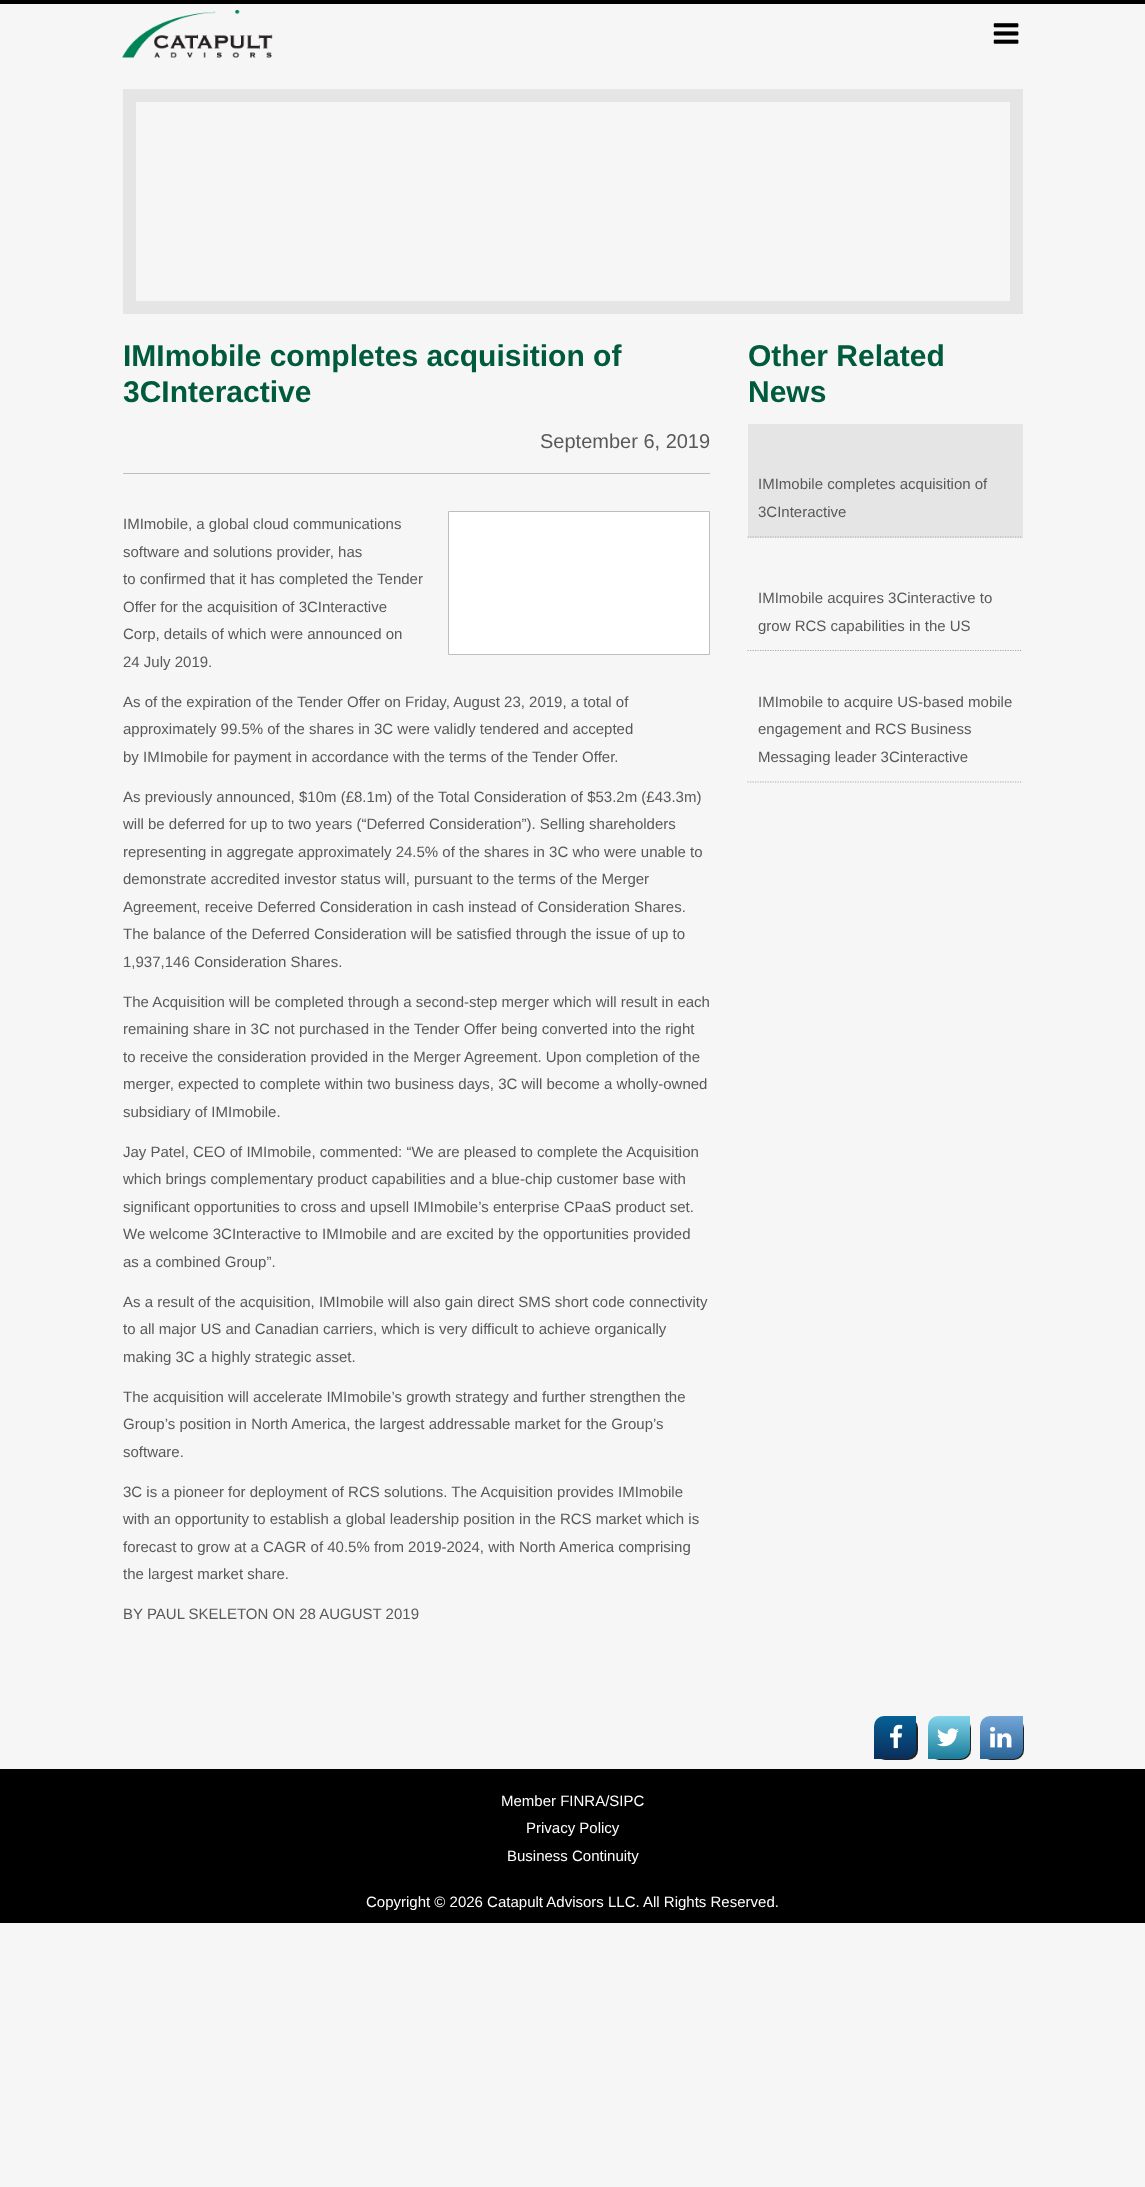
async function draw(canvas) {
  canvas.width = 1145;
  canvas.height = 2187;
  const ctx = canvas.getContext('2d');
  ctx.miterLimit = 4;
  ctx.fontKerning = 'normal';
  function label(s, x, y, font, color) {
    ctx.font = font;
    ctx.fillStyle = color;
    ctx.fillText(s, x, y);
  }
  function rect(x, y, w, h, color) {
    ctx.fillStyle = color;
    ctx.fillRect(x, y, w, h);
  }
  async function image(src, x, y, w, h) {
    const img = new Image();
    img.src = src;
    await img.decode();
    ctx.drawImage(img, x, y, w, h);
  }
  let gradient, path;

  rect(0, 0, 1145, 2187, '#f6f6f6');
  rect(0, 0, 1145, 4, '#000');
  await image('assets/img1.png', 122, 10, 151, 48);
  await image('assets/img2.png', 993, 23, 26, 21);
  ctx.strokeStyle = '#e5e5e5';
  ctx.lineWidth = 13;
  ctx.strokeRect(129.5, 95.5, 887, 212);
  label('IMImobile completes acquisition of', 123, 366, 'bold 30px Liberation Sans', '#005a3c');
  label('3CInteractive', 123, 402, 'bold 30px Liberation Sans', '#005a3c');
  rect(123, 473, 587, 1, '#bcbec0');
  label('September 6, 2019', 540, 448, '20px Liberation Sans', '#58595b');
  label('IMImobile, a global cloud communications', 123, 529, '15px Liberation Sans', '#58595b');
  label('software and solutions provider, has', 123, 557, '15px Liberation Sans', '#58595b');
  label('to confirmed that it has completed the Tender', 123, 584, '15px Liberation Sans', '#58595b');
  label('Offer for the acquisition of 3CInteractive', 123, 612, '15px Liberation Sans', '#58595b');
  label('Corp, details of which were announced on', 123, 639, '15px Liberation Sans', '#58595b');
  label('24 July 2019.', 123, 667, '15px Liberation Sans', '#58595b');
  ctx.fillStyle = '#fff';
  ctx.beginPath();
  ctx.rect(448.5, 511.5, 261, 143);
  ctx.fill();
  ctx.strokeStyle = '#bcbec0';
  ctx.lineWidth = 1;
  ctx.stroke();
  label('As of the expiration of the Tender Offer on Friday, August 23, 2019, a total of', 123, 707, '15px Liberation Sans', '#58595b');
  label('approximately 99.5% of the shares in 3C were validly tendered and accepted', 123, 734, '15px Liberation Sans', '#58595b');
  label('by IMImobile for payment in accordance with the terms of the Tender Offer.', 123, 762, '15px Liberation Sans', '#58595b');
  label('As previously announced, $10m (£8.1m) of the Total Consideration of $53.2m (£43.3m)', 123, 802, '15px Liberation Sans', '#58595b');
  label('will be deferred for up to two years (“Deferred Consideration”). Selling shareholders', 123, 829, '15px Liberation Sans', '#58595b');
  label('representing in aggregate approximately 24.5% of the shares in 3C who were unable to', 123, 857, '15px Liberation Sans', '#58595b');
  label('demonstrate accredited investor status will, pursuant to the terms of the Merger', 123, 884, '15px Liberation Sans', '#58595b');
  label('Agreement, receive Deferred Consideration in cash instead of Consideration Shares.', 123, 912, '15px Liberation Sans', '#58595b');
  label('The balance of the Deferred Consideration will be satisfied through the issue of up to', 123, 939, '15px Liberation Sans', '#58595b');
  label('1,937,146 Consideration Shares.', 123, 967, '15px Liberation Sans', '#58595b');
  label('The Acquisition will be completed through a second-step merger which will result in each', 123, 1007, '15px Liberation Sans', '#58595b');
  label('remaining share in 3C not purchased in the Tender Offer being converted into the right', 123, 1034, '15px Liberation Sans', '#58595b');
  label('to receive the consideration provided in the Merger Agreement. Upon completion of the', 123, 1062, '15px Liberation Sans', '#58595b');
  label('merger, expected to complete within two business days, 3C will become a wholly-owned', 123, 1089, '15px Liberation Sans', '#58595b');
  label('subsidiary of IMImobile.', 123, 1117, '15px Liberation Sans', '#58595b');
  label('Jay Patel, CEO of IMImobile, commented: “We are pleased to complete the Acquisition', 123, 1157, '15px Liberation Sans', '#58595b');
  label('which brings complementary product capabilities and a blue-chip customer base with', 123, 1184, '15px Liberation Sans', '#58595b');
  label('significant opportunities to cross and upsell IMImobile’s enterprise CPaaS product set.', 123, 1212, '15px Liberation Sans', '#58595b');
  label('We welcome 3CInteractive to IMImobile and are excited by the opportunities provided', 123, 1239, '15px Liberation Sans', '#58595b');
  label('as a combined Group”.', 123, 1267, '15px Liberation Sans', '#58595b');
  label('As a result of the acquisition, IMImobile will also gain direct SMS short code connectivity', 123, 1307, '15px Liberation Sans', '#58595b');
  label('to all major US and Canadian carriers, which is very difficult to achieve organically', 123, 1334, '15px Liberation Sans', '#58595b');
  label('making 3C a highly strategic asset.', 123, 1362, '15px Liberation Sans', '#58595b');
  label('The acquisition will accelerate IMImobile’s growth strategy and further strengthen the', 123, 1402, '15px Liberation Sans', '#58595b');
  label('Group’s position in North America, the largest addressable market for the Group’s', 123, 1429, '15px Liberation Sans', '#58595b');
  label('software.', 123, 1457, '15px Liberation Sans', '#58595b');
  label('3C is a pioneer for deployment of RCS solutions. The Acquisition provides IMImobile', 123, 1497, '15px Liberation Sans', '#58595b');
  label('with an opportunity to establish a global leadership position in the RCS market which is', 123, 1524, '15px Liberation Sans', '#58595b');
  label('forecast to grow at a CAGR of 40.5% from 2019-2024, with North America comprising', 123, 1552, '15px Liberation Sans', '#58595b');
  label('the largest market share.', 123, 1579, '15px Liberation Sans', '#58595b');
  label('BY PAUL SKELETON ON 28 AUGUST 2019', 123, 1619, '15px Liberation Sans', '#58595b');
  label('Other Related', 748, 366, 'bold 30px Liberation Sans', '#005a3c');
  label('News', 748, 402, 'bold 30px Liberation Sans', '#005a3c');
  rect(748, 424, 275, 114, '#e5e5e5');
  path = new Path2D('M747.5 537H1022.5');
  ctx.strokeStyle = '#acacac';
  ctx.lineWidth = 1.2;
  ctx.setLineDash([1.25, 1.25]);
  ctx.stroke(path);
  label('IMImobile completes acquisition of', 758, 489, '15px Liberation Sans', '#58595b');
  label('3CInteractive', 758, 517, '15px Liberation Sans', '#58595b');
  path = new Path2D('M747.5 650.5H1022.5');
  ctx.stroke(path);
  label('IMImobile acquires 3Cinteractive to', 758, 603, '15px Liberation Sans', '#58595b');
  label('grow RCS capabilities in the US', 758, 631, '15px Liberation Sans', '#58595b');
  path = new Path2D('M747.5 782H1022.5');
  ctx.stroke(path);
  label('IMImobile to acquire US-based mobile', 758, 707, '15px Liberation Sans', '#58595b');
  label('engagement and RCS Business', 758, 734, '15px Liberation Sans', '#58595b');
  label('Messaging leader 3Cinteractive', 758, 762, '15px Liberation Sans', '#58595b');
  ctx.fillStyle = '#222';
  ctx.filter = 'blur(0.5px)';
  ctx.beginPath();
  ctx.roundRect(875, 1718, 43, 42, 10);
  ctx.fill();
  ctx.filter = 'none';
  gradient = ctx.createLinearGradient(895, 1716, 895, 1759);
  gradient.addColorStop(0, '#066197');
  gradient.addColorStop(1, '#0a2d5b');
  ctx.fillStyle = gradient;
  ctx.beginPath();
  ctx.roundRect(874, 1716, 42, 43, [10, 0, 10, 0]);
  ctx.fill();
  await image('assets/img3.png', 890, 1724, 13, 25);
  ctx.fillStyle = '#222';
  ctx.filter = 'blur(0.5px)';
  ctx.beginPath();
  ctx.roundRect(929, 1718, 42, 42, 10);
  ctx.fill();
  ctx.filter = 'none';
  gradient = ctx.createLinearGradient(949, 1716, 949, 1759);
  gradient.addColorStop(0, '#83d4eb');
  gradient.addColorStop(1, '#1a7c99');
  ctx.fillStyle = gradient;
  ctx.beginPath();
  ctx.roundRect(928, 1716, 42, 43, [10, 0, 10, 0]);
  ctx.fill();
  await image('assets/img4.png', 937, 1728, 22, 19);
  ctx.fillStyle = '#222';
  ctx.filter = 'blur(0.5px)';
  ctx.beginPath();
  ctx.roundRect(981, 1718, 43, 42, 10);
  ctx.fill();
  ctx.filter = 'none';
  gradient = ctx.createLinearGradient(1001, 1716, 1001, 1759);
  gradient.addColorStop(0, '#75a7d9');
  gradient.addColorStop(1, '#296396');
  ctx.fillStyle = gradient;
  ctx.beginPath();
  ctx.roundRect(980, 1716, 43, 43, [10, 0, 10, 0]);
  ctx.fill();
  await image('assets/img5.png', 990, 1726, 22, 22);
  rect(0, 1769, 1145, 154, '#000');
  label('Member FINRA/SIPC', 501, 1806, '15px Liberation Sans', '#fff');
  label('Privacy Policy', 526, 1833, '15px Liberation Sans', '#fff');
  label('Business Continuity', 507, 1861, '15px Liberation Sans', '#fff');
  label('Copyright © 2026 Catapult Advisors LLC.', 366, 1907, '15px Liberation Sans', '#fff');
  label('All Rights Reserved.', 643, 1907, '15px Liberation Sans', '#fff');
}

draw(document.querySelector('canvas'));
